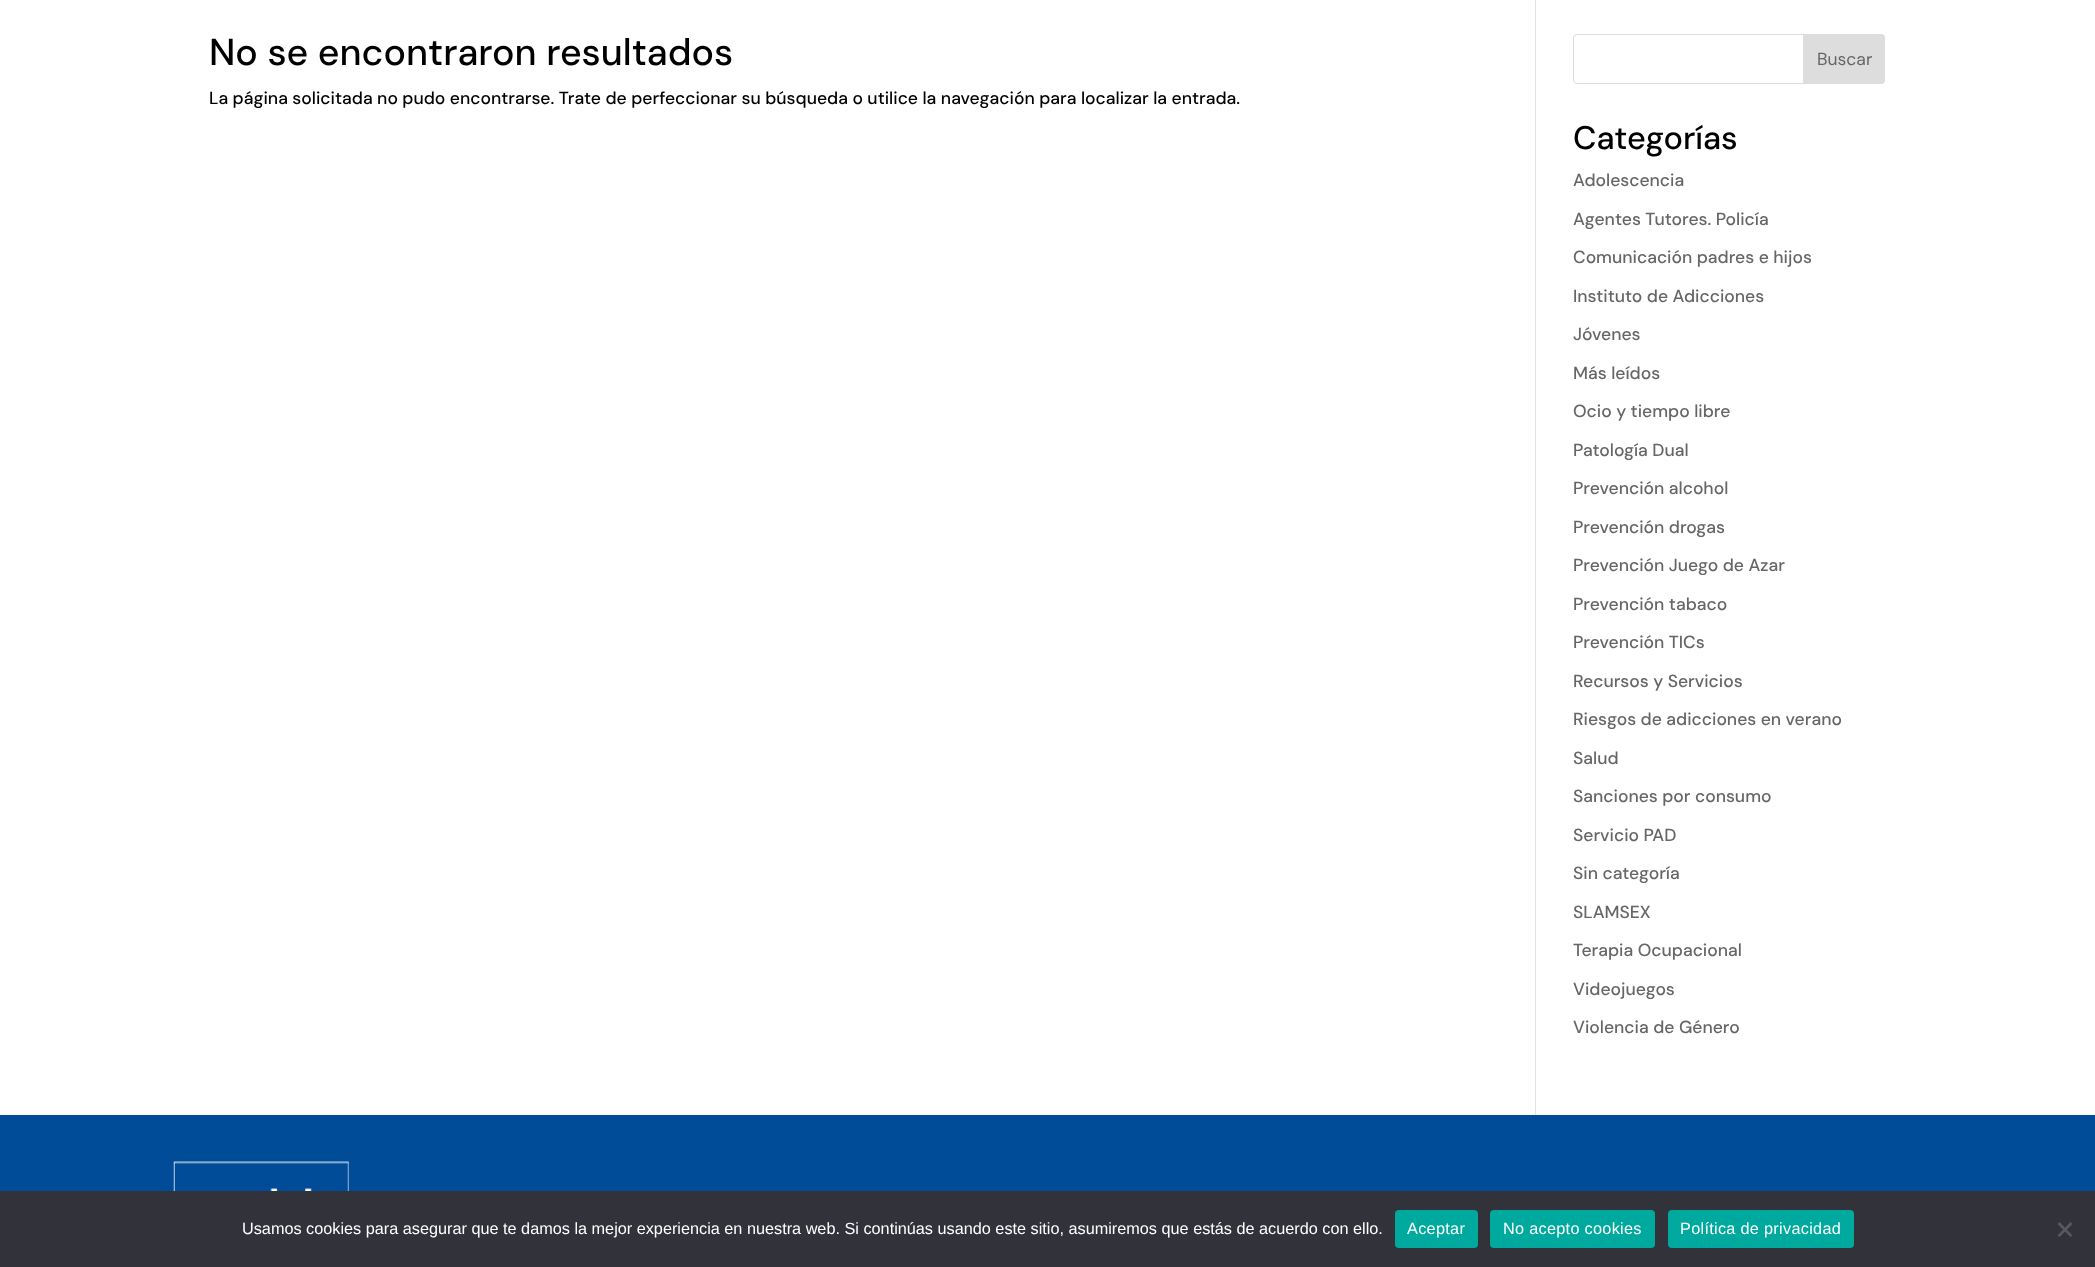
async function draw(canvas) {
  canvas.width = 2095;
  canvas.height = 1267;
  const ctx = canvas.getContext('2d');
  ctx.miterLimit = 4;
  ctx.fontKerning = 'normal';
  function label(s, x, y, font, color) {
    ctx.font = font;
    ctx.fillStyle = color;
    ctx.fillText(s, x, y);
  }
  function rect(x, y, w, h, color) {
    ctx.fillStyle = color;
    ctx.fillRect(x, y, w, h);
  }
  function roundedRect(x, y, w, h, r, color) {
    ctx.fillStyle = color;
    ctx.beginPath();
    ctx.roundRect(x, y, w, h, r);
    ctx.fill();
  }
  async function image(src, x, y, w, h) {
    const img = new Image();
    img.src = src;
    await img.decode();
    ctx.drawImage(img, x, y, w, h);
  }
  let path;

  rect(0, 0, 2095, 1267, '#fff');
  rect(1535, 0, 1, 1115, '#e2e2e2');
  label('No se encontraron resultados', 209, 65, '500 37.5px DM Sans', '#000');
  label('La página solicitada no pudo encontrarse. Trate de perfeccionar su búsqueda o utilice la navegación para localizar la entrada.', 209, 104, '500 17.5px DM Sans', '#000');
  ctx.beginPath();
  ctx.roundRect(1573.5, 34.5, 311, 49, 3.5);
  ctx.strokeStyle = '#ddd';
  ctx.stroke();
  ctx.fillStyle = '#ddd';
  ctx.beginPath();
  ctx.roundRect(1803.5, 34.5, 81, 49, [0, 3.5, 3.5, 0]);
  ctx.fill();
  ctx.stroke();
  label('Buscar', 1817, 65, '17.5px DM Sans', '#666');
  label('Categorías', 1573, 149, '500 32.5px DM Sans', '#000');
  label('Adolescencia', 1573, 186, '500 17.5px DM Sans', '#666');
  label('Agentes Tutores. Policía', 1573, 225, '500 17.5px DM Sans', '#666');
  label('Comunicación padres e hijos', 1573, 263, '500 17.5px DM Sans', '#666');
  label('Instituto de Adicciones', 1573, 302, '500 17.5px DM Sans', '#666');
  label('Jóvenes', 1573, 340, '500 17.5px DM Sans', '#666');
  label('Más leídos', 1573, 379, '500 17.5px DM Sans', '#666');
  label('Ocio y tiempo libre', 1573, 417, '500 17.5px DM Sans', '#666');
  label('Patología Dual', 1573, 456, '500 17.5px DM Sans', '#666');
  label('Prevención alcohol', 1573, 494, '500 17.5px DM Sans', '#666');
  label('Prevención drogas', 1573, 533, '500 17.5px DM Sans', '#666');
  label('Prevención Juego de Azar', 1573, 571, '500 17.5px DM Sans', '#666');
  label('Prevención tabaco', 1573, 610, '500 17.5px DM Sans', '#666');
  label('Prevención TICs', 1573, 648, '500 17.5px DM Sans', '#666');
  label('Recursos y Servicios', 1573, 687, '500 17.5px DM Sans', '#666');
  label('Riesgos de adicciones en verano', 1573, 725, '500 17.5px DM Sans', '#666');
  label('Salud', 1573, 764, '500 17.5px DM Sans', '#666');
  label('Sanciones por consumo', 1573, 802, '500 17.5px DM Sans', '#666');
  label('Servicio PAD', 1573, 841, '500 17.5px DM Sans', '#666');
  label('Sin categoría', 1573, 879, '500 17.5px DM Sans', '#666');
  label('SLAMSEX', 1573, 918, '500 17.5px DM Sans', '#666');
  label('Terapia Ocupacional', 1573, 956, '500 17.5px DM Sans', '#666');
  label('Videojuegos', 1573, 995, '500 17.5px DM Sans', '#666');
  label('Violencia de Género', 1573, 1033, '500 17.5px DM Sans', '#666');
  rect(0, 1115, 2095, 76, '#004c98');
  await image('assets/img1.png', 173, 1161, 176, 30);
  rect(0, 1191, 2095, 76, '#32323a');
  label('Usamos cookies para asegurar que te damos la mejor experiencia en nuestra web. Si continúas usando este sitio, asumiremos que estás de acuerdo con ello.', 242, 1234, '16.25px Liberation Sans', '#fff');
  roundedRect(1395, 1210, 83, 38, 4, '#00a99d');
  ctx.letterSpacing = '0.3px';
  label('Aceptar', 1407, 1234, '16.25px Liberation Sans', '#fff');
  roundedRect(1490, 1210, 165, 38, 4, '#00a99d');
  label('No acepto cookies', 1503, 1234, '16.25px Liberation Sans', '#fff');
  roundedRect(1668, 1210, 186, 38, 4, '#00a99d');
  label('Política de privacidad', 1680, 1234, '16.25px Liberation Sans', '#fff');
  ctx.fillStyle = '#59595d';
  path = new Path2D('M2070.5 1222L2072.5 1224L2059.5 1237L2057.5 1235.5Z');
  ctx.fill(path);
  path = new Path2D('M2057.5 1224L2059.5 1222L2072.5 1235.5L2070.5 1237Z');
  ctx.fill(path);
}

draw(document.querySelector('canvas'));
